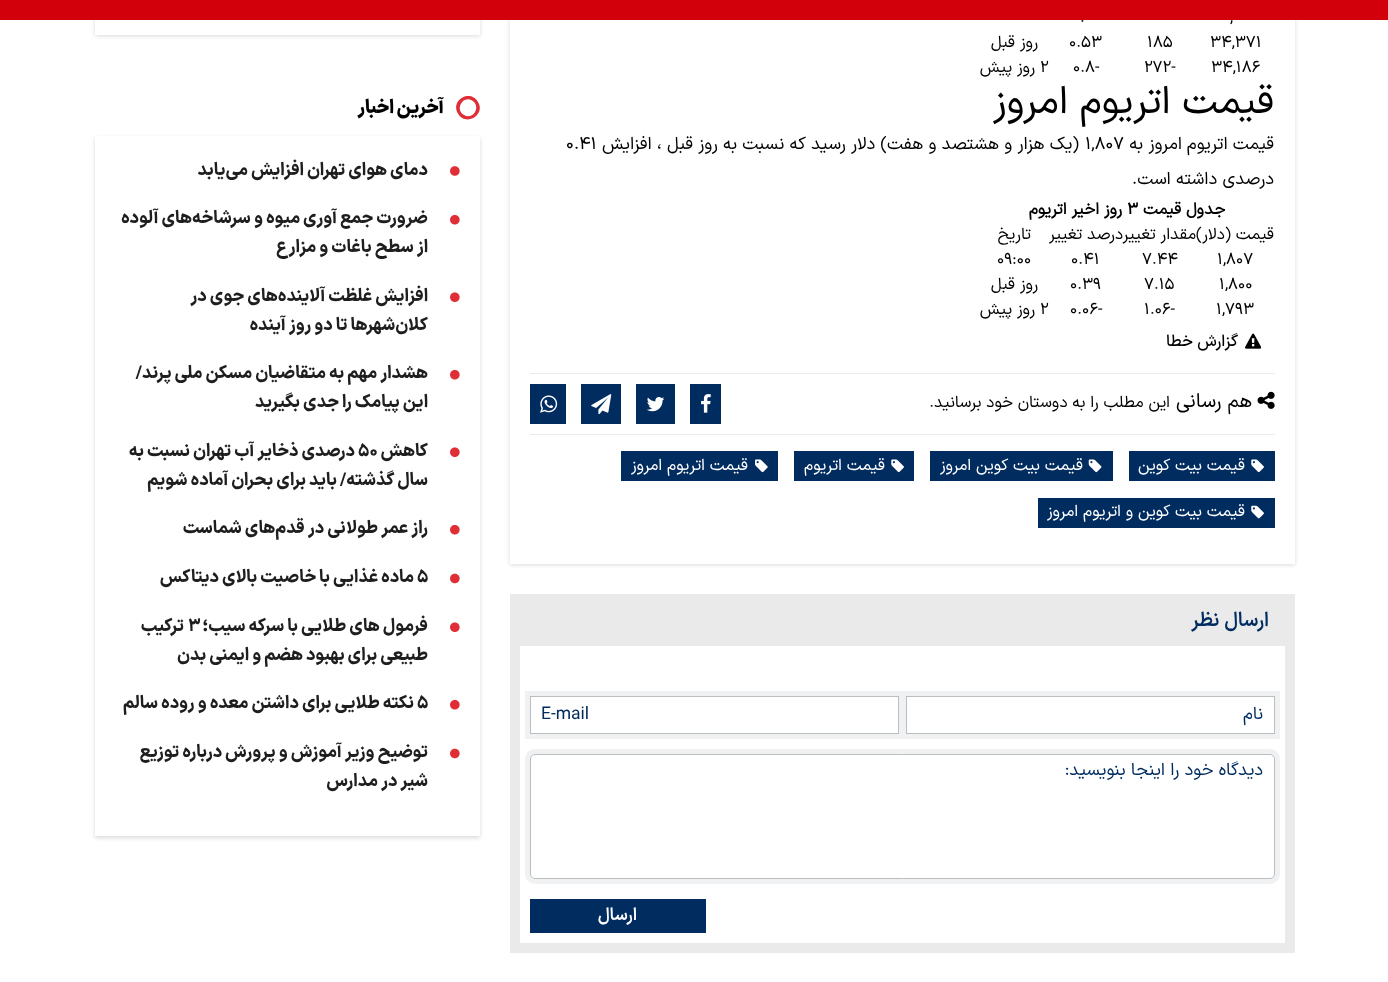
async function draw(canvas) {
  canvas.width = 1388;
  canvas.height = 982;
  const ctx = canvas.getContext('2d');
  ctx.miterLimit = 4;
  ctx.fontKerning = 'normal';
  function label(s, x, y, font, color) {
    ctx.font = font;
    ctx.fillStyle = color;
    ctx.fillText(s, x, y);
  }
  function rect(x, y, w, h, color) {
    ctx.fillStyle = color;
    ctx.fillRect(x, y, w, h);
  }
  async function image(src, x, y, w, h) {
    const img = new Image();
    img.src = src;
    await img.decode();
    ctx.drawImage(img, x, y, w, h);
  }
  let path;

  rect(0, 0, 1388, 982, '#fff');
  ctx.save();
  path = new Path2D('M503 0H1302V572H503ZM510-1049H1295V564H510Z');
  ctx.clip(path, 'evenodd');
  ctx.fillStyle = '#06060626';
  ctx.filter = 'blur(2px)';
  ctx.beginPath();
  ctx.rect(510, -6, 785, 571);
  ctx.fill();
  ctx.filter = 'none';
  ctx.restore();
  label('.', 1080, 22, '16.25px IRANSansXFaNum', '#000');
  ctx.save();
  path = new Path2D('M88 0H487V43H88ZM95-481H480V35H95Z');
  ctx.clip(path, 'evenodd');
  ctx.fillStyle = '#06060626';
  ctx.filter = 'blur(2px)';
  ctx.beginPath();
  ctx.rect(95, -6, 385, 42);
  ctx.fill();
  ctx.filter = 'none';
  ctx.restore();
  rect(0, 0, 1388, 20, '#d2000a');
  label(',', 1230, 22, '16.25px IRANSansXFaNum', '#000');
  label('۳۴,۳۷۱', 1210, 47, '16.25px IRANSansXFaNum', '#000');
  label('۱۸۵', 1147, 47, '16.25px IRANSansXFaNum', '#000');
  label('۰.۵۳', 1069, 47, '16.25px IRANSansXFaNum', '#000');
  ctx.direction = 'rtl';
  label('روز قبل', 1038, 47, '16.25px IRANSansXFaNum', '#000');
  ctx.direction = 'ltr';
  label('۳۴,۱۸۶', 1211, 72, '16.25px IRANSansXFaNum', '#000');
  label('۲۷۲-', 1144, 72, '16.25px IRANSansXFaNum', '#000');
  label('۰.۸-', 1073, 72, '16.25px IRANSansXFaNum', '#000');
  label('۲', 1040, 72, '16.25px IRANSansXFaNum', '#000');
  ctx.direction = 'rtl';
  label('روز پیش', 1035, 72, '16.25px IRANSansXFaNum', '#000');
  label('قیمت اتریوم امروز', 1274, 113, '39px IRANSansXFaNum', '#000');
  label('قیمت اتریوم', 1274, 149, '17.5px IRANSansXFaNum', '#000');
  label('امروز به', 1182, 149, '17.5px IRANSansXFaNum', '#000');
  ctx.direction = 'ltr';
  label('۱,۸۰۷', 1085, 149, '17.5px IRANSansXFaNum', '#000');
  ctx.direction = 'rtl';
  label('(یک هزار و هشتصد و هفت) دلار رسید که نسبت به روز قبل ، افزایش', 1079, 149, '17.5px IRANSansXFaNum', '#000');
  ctx.direction = 'ltr';
  label('۰.۴۱', 566, 149, '17.5px IRANSansXFaNum', '#000');
  ctx.direction = 'rtl';
  label('درصدی داشته است.', 1274, 184, '17.5px IRANSansXFaNum', '#000');
  label('جدول قیمت', 1225, 214, 'bold 16.25px IRANSansXFaNum', '#000');
  ctx.direction = 'ltr';
  label('۳', 1127, 214, 'bold 16.25px IRANSansXFaNum', '#000');
  ctx.direction = 'rtl';
  label('روز اخیر اتریوم', 1122, 214, 'bold 16.25px IRANSansXFaNum', '#000');
  label('قیمت (دلار)', 1274, 239, '16.25px IRANSansXFaNum', '#000');
  label('مقدار تغییر', 1196, 239, '16.25px IRANSansXFaNum', '#000');
  label('درصد تغییر', 1123, 239, '16.25px IRANSansXFaNum', '#000');
  label('تاریخ', 1031, 239, '16.25px IRANSansXFaNum', '#000');
  ctx.direction = 'ltr';
  label('۱,۸۰۷', 1217, 264, '16.25px IRANSansXFaNum', '#000');
  label('۷.۴۴', 1142, 264, '16.25px IRANSansXFaNum', '#000');
  label('۰.۴۱', 1071, 264, '16.25px IRANSansXFaNum', '#000');
  label('09:00', 997, 264, '16.25px IRANSansXFaNum', '#000');
  label('۱,۸۰۰', 1219, 289, '16.25px IRANSansXFaNum', '#000');
  label('۷.۱۵', 1144, 289, '16.25px IRANSansXFaNum', '#000');
  label('۰.۳۹', 1070, 289, '16.25px IRANSansXFaNum', '#000');
  ctx.direction = 'rtl';
  label('روز قبل', 1038, 289, '16.25px IRANSansXFaNum', '#000');
  ctx.direction = 'ltr';
  label('۱,۷۹۳', 1216, 314, '16.25px IRANSansXFaNum', '#000');
  label('۱.۰۶-', 1144, 314, '16.25px IRANSansXFaNum', '#000');
  label('۰.۰۶-', 1070, 314, '16.25px IRANSansXFaNum', '#000');
  label('۲', 1040, 314, '16.25px IRANSansXFaNum', '#000');
  ctx.direction = 'rtl';
  label('روز پیش', 1035, 314, '16.25px IRANSansXFaNum', '#000');
  await image('assets/img1.png', 1245, 333, 16, 16);
  label('گزارش خطا', 1238, 346, '500 16.25px IRANSansXFaNum', '#000');
  rect(530, 373, 745, 1, '#ebebeb');
  rect(530, 434, 745, 1, '#ebebeb');
  await image('assets/img2.png', 1257, 391, 18, 18);
  label('هم رسانی', 1252, 407, '20px IRANSansXFaNum', '#000');
  label('این مطلب را به دوستان خود برسانید.', 1170, 407, '16.25px IRANSansXFaNum', '#000');
  rect(690, 384, 31, 40, '#002c60');
  await image('assets/img3.png', 701, 394, 10, 19);
  rect(636, 384, 39, 40, '#002c60');
  await image('assets/img4.png', 647, 397, 18, 15);
  rect(581, 384, 40, 40, '#002c60');
  await image('assets/img5.png', 591, 394, 21, 20);
  rect(530, 384, 36, 40, '#002c60');
  await image('assets/img6.png', 540, 395, 18, 18);
  rect(1129, 451, 146, 30, '#002c60');
  await image('assets/img7.png', 1251, 459, 13, 14);
  label('قیمت بیت کوین', 1245, 470, '16.25px IRANSansXFaNum', '#fff');
  rect(930, 451, 183, 30, '#002c60');
  await image('assets/img8.png', 1088, 459, 14, 14);
  label('قیمت بیت کوین امروز', 1083, 470, '16.25px IRANSansXFaNum', '#fff');
  rect(794, 451, 120, 30, '#002c60');
  await image('assets/img7.png', 891, 459, 13, 14);
  label('قیمت اتریوم', 885, 470, '16.25px IRANSansXFaNum', '#fff');
  rect(621, 451, 157, 30, '#002c60');
  await image('assets/img9.png', 755, 459, 13, 14);
  label('قیمت اتریوم امروز', 748, 470, '16.25px IRANSansXFaNum', '#fff');
  rect(1038, 498, 237, 30, '#002c60');
  await image('assets/img10.png', 1251, 505, 13, 14);
  label('قیمت بیت کوین و اتریوم امروز', 1245, 516, '16.25px IRANSansXFaNum', '#fff');
  rect(510, 594, 785, 359, '#eaeaea');
  label('ارسال نظر', 1269, 626, '600 20px IRANSansXFaNum', '#002c60');
  rect(520, 646, 765, 297, '#fff');
  ctx.strokeStyle = '#f0f1f2';
  ctx.lineWidth = 5;
  ctx.strokeRect(903.5, 693.5, 374, 43);
  ctx.strokeStyle = '#babebf';
  ctx.lineWidth = 1;
  ctx.strokeRect(906.5, 696.5, 368, 37);
  label('نام', 1263, 719, '17.5px IRANSansXFaNum', '#002c60');
  ctx.strokeStyle = '#f0f1f2';
  ctx.lineWidth = 5;
  ctx.strokeRect(527.5, 693.5, 374, 43);
  ctx.strokeStyle = '#babebf';
  ctx.lineWidth = 1;
  ctx.strokeRect(530.5, 696.5, 368, 37);
  ctx.direction = 'ltr';
  label('E-mail', 541, 719, '17.5px IRANSansXFaNum', '#002c60');
  ctx.beginPath();
  ctx.roundRect(527.5, 751.5, 750, 130, 7.5);
  ctx.strokeStyle = '#f0f1f2';
  ctx.lineWidth = 5;
  ctx.stroke();
  ctx.beginPath();
  ctx.roundRect(530.5, 754.5, 744, 124, 4.5);
  ctx.strokeStyle = '#babebf';
  ctx.lineWidth = 1;
  ctx.stroke();
  ctx.direction = 'rtl';
  label('دیدگاه خود را اینجا بنویسید:', 1263, 775, '17.5px IRANSansXFaNum', '#002c60');
  rect(530, 899, 176, 34, '#002c60');
  label('ارسال', 637, 920, '600 17.5px IRANSansXFaNum', '#fff');
  ctx.fillStyle = '#df2e36';
  path = new Path2D('M472 100.5C463 95 454.5 109.5 464 115C473.5 120.5 481.5 106 472 100.5ZM478 102C486 115 465.5 127 458 113.5C450 100 470.5 88.5 478 102Z');
  ctx.fill(path);
  label('آخرین اخبار', 444, 113, '900 18.75px IRANSansXFaNum', '#000');
  ctx.save();
  path = new Path2D('M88 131H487V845H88ZM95 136H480V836H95Z');
  ctx.clip(path, 'evenodd');
  ctx.fillStyle = '#06060626';
  ctx.filter = 'blur(2px)';
  ctx.beginPath();
  ctx.rect(95, 138, 385, 700);
  ctx.fill();
  ctx.filter = 'none';
  ctx.restore();
  await image('assets/img11.png', 450, 166, 10, 10);
  label('دمای هوای تهران افزایش می‌یابد', 428, 175, '800 17.5px IRANSansXFaNum', '#1e1e1e');
  await image('assets/img12.png', 450, 214, 10, 11);
  label('ضرورت جمع آوری میوه و سرشاخه‌های آلوده', 428, 223, '800 17.5px IRANSansXFaNum', '#1e1e1e');
  label('از سطح باغات و مزارع', 428, 252, '800 17.5px IRANSansXFaNum', '#1e1e1e');
  await image('assets/img13.png', 450, 292, 10, 11);
  label('افزایش غلظت آلاینده‌های جوی در', 428, 301, '800 17.5px IRANSansXFaNum', '#1e1e1e');
  label('کلان‌شهر‌ها تا دو روز آینده', 428, 330, '800 17.5px IRANSansXFaNum', '#1e1e1e');
  await image('assets/img12.png', 450, 369, 10, 11);
  label('هشدار مهم به متقاضیان مسکن ملی پرند/', 428, 378, '800 17.5px IRANSansXFaNum', '#1e1e1e');
  label('این پیامک را جدی بگیرید', 428, 407, '800 17.5px IRANSansXFaNum', '#1e1e1e');
  await image('assets/img13.png', 450, 447, 10, 11);
  label('کاهش', 428, 456, '800 17.5px IRANSansXFaNum', '#1e1e1e');
  ctx.direction = 'ltr';
  label('۵۰', 358, 456, '800 17.5px IRANSansXFaNum', '#1e1e1e');
  ctx.direction = 'rtl';
  label('درصدی ذخایر آب تهران نسبت به', 355, 456, '800 17.5px IRANSansXFaNum', '#1e1e1e');
  label('سال گذشته/ باید برای بحران آماده شویم', 428, 485, '800 17.5px IRANSansXFaNum', '#1e1e1e');
  await image('assets/img12.png', 450, 524, 10, 11);
  label('راز عمر طولانی در قدم‌های شماست', 428, 533, '800 17.5px IRANSansXFaNum', '#1e1e1e');
  await image('assets/img14.png', 450, 573, 10, 11);
  ctx.direction = 'ltr';
  label('۵', 417, 582, '800 17.5px IRANSansXFaNum', '#1e1e1e');
  ctx.direction = 'rtl';
  label('ماده غذایی با خاصیت بالای دیتاکس', 414, 582, '800 17.5px IRANSansXFaNum', '#1e1e1e');
  await image('assets/img13.png', 450, 622, 10, 11);
  label('فرمول های طلایی با سرکه سیب؛', 428, 631, '800 17.5px IRANSansXFaNum', '#1e1e1e');
  ctx.direction = 'ltr';
  label('۳', 188, 631, '800 17.5px IRANSansXFaNum', '#1e1e1e');
  ctx.direction = 'rtl';
  label('ترکیب', 184, 631, '800 17.5px IRANSansXFaNum', '#1e1e1e');
  label('طبیعی برای بهبود هضم و ایمنی بدن', 428, 660, '800 17.5px IRANSansXFaNum', '#1e1e1e');
  await image('assets/img12.png', 450, 699, 10, 11);
  ctx.direction = 'ltr';
  label('5', 417, 708, '800 17.5px IRANSansXFaNum', '#1e1e1e');
  ctx.direction = 'rtl';
  label('نکته طلایی برای داشتن معده و روده سالم', 414, 708, '800 17.5px IRANSansXFaNum', '#1e1e1e');
  await image('assets/img14.png', 450, 748, 10, 11);
  label('توضیح وزیر آموزش و پرورش درباره توزیع', 428, 757, '800 17.5px IRANSansXFaNum', '#1e1e1e');
  label('شیر در مدارس', 428, 786, '800 17.5px IRANSansXFaNum', '#1e1e1e');
}

draw(document.querySelector('canvas'));
